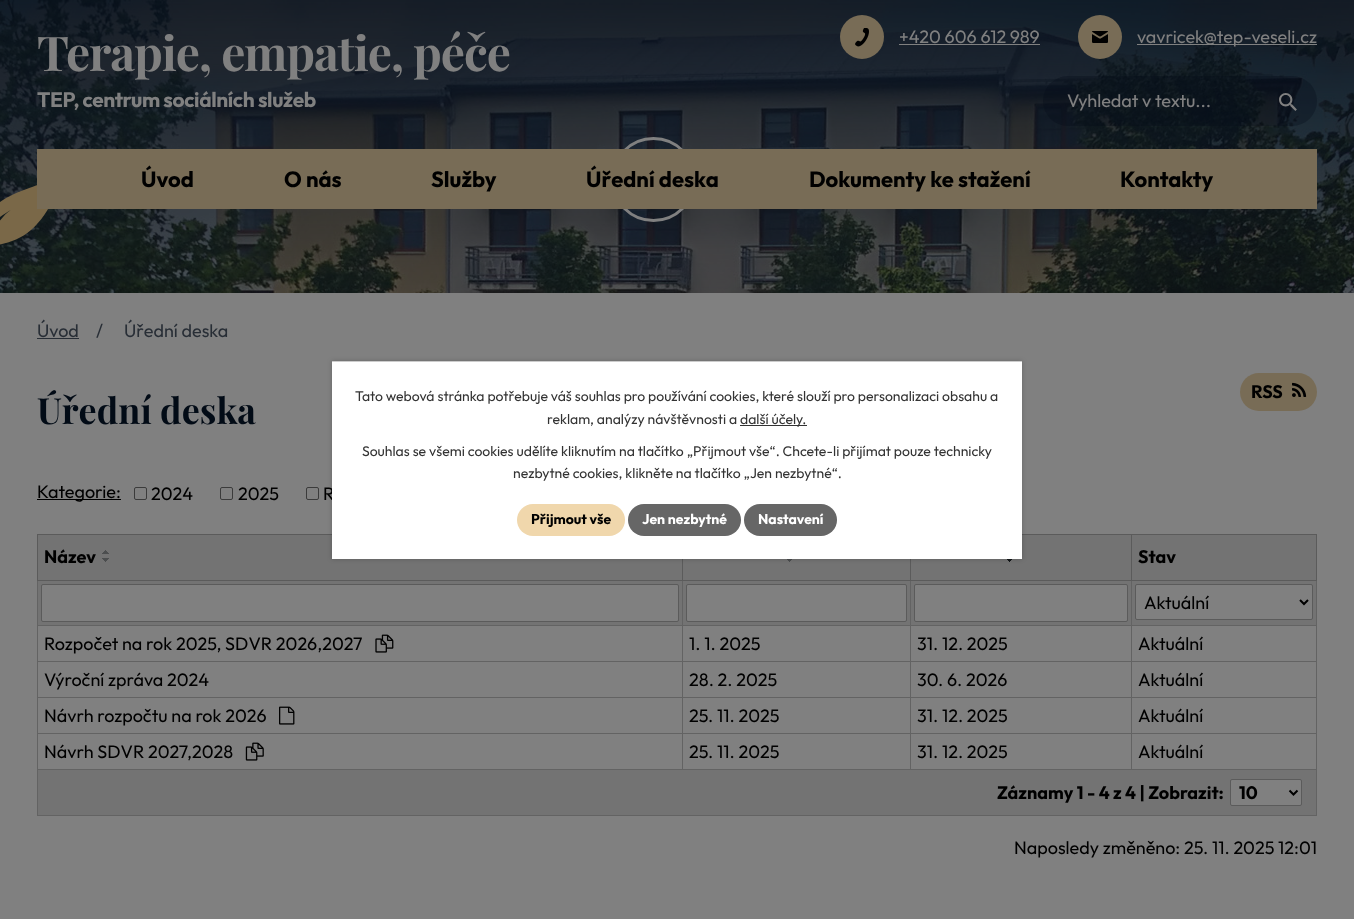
async function draw(canvas) {
  canvas.width = 1354;
  canvas.height = 919;
  const ctx = canvas.getContext('2d');
  ctx.miterLimit = 4;
  ctx.fontKerning = 'normal';
  function label(s, x, y, font, color) {
    ctx.font = font;
    ctx.fillStyle = color;
    ctx.fillText(s, x, y);
  }
  function rect(x, y, w, h, color) {
    ctx.fillStyle = color;
    ctx.fillRect(x, y, w, h);
  }
  function roundedRect(x, y, w, h, r, color) {
    ctx.fillStyle = color;
    ctx.beginPath();
    ctx.roundRect(x, y, w, h, r);
    ctx.fill();
  }
  async function image(src, x, y, w, h) {
    const img = new Image();
    img.src = src;
    await img.decode();
    ctx.drawImage(img, x, y, w, h);
  }
  let path;

  rect(0, 0, 1354, 919, '#808080');
  await image('assets/img1.png', 0, 0, 1354, 293);
  await image('assets/img2.png', 0, 185, 48, 60);
  ctx.letterSpacing = '-1px';
  label('Terapie, empatie, péče', 37, 71, 'bold 47.9px Playfair Display', '#808080');
  ctx.letterSpacing = '-0.4px';
  label('TEP, centrum sociálních služeb', 37, 107, 'bold 20.9px Outfit', '#808080');
  ctx.fillStyle = '#786c56';
  ctx.beginPath();
  ctx.arc(862, 37, 22, 0, 2 * Math.PI);
  ctx.fill();
  await image('assets/img3.png', 855, 28, 14, 19);
  ctx.letterSpacing = '0px';
  label('+420 606 612 989', 899, 43, '18px Outfit', '#808080');
  rect(899, 44, 141, 1, '#808080');
  ctx.fillStyle = '#786c56';
  ctx.beginPath();
  ctx.arc(1100, 37, 22, 0, 2 * Math.PI);
  ctx.fill();
  await image('assets/img4.png', 1092, 31, 16, 12);
  rect(1137, 44, 180, 1, '#808080');
  label('vavricek@tep-veseli.cz', 1137, 43, '18px Outfit', '#808080');
  roundedRect(1043, 76, 274, 50, 25, '#020b164d');
  label('Vyhledat v textu...', 1067, 107, '18px Outfit', '#808080');
  await image('assets/img5.png', 1279, 93, 18, 18);
  rect(37, 149, 1280, 60, '#786c56');
  label('Úvod', 141, 187, 'bold 22px Outfit', '#000');
  label('O nás', 284, 187, 'bold 22px Outfit', '#000');
  label('Služby', 431, 187, 'bold 22px Outfit', '#000');
  ctx.beginPath();
  ctx.arc(653.5, 179.5, 41, 0, 2 * Math.PI);
  ctx.strokeStyle = '#808080';
  ctx.lineWidth = 3;
  ctx.stroke();
  rect(611, 149, 85, 60, '#786c56');
  label('Úřední deska', 586, 187, 'bold 22px Outfit', '#000');
  label('Dokumenty ke stažení', 809, 187, 'bold 22px Outfit', '#000');
  label('Kontakty', 1120, 187, 'bold 22px Outfit', '#000');
  label('Úvod', 37, 337, '18px Outfit', '#282e36');
  rect(37, 338, 42, 1, '#282e36');
  label('/', 96, 337, '18px Outfit', '#282e36');
  label('Úřední deska', 124, 337, '18px Outfit', '#282e36');
  label('Úřední deska', 37, 424, 'bold 36px Playfair Display', '#020b16');
  roundedRect(1240, 373, 77, 38, 19, '#786c56');
  label('RSS', 1251, 398, 'bold 18px Outfit', '#000');
  await image('assets/img6.png', 1292, 382, 15, 15);
  rect(37, 499, 84, 1, '#000');
  label('Kategorie:', 37, 498, '18px Outfit', '#000');
  ctx.beginPath();
  ctx.roundRect(134.5, 487.5, 12, 12, 1.5);
  ctx.strokeStyle = '#3b3b3b';
  ctx.lineWidth = 1;
  ctx.stroke();
  label('2024', 151, 500, '18px Outfit', '#000');
  ctx.beginPath();
  ctx.roundRect(220.5, 487.5, 12, 12, 1.5);
  ctx.stroke();
  label('2025', 238, 500, '18px Outfit', '#000');
  ctx.beginPath();
  ctx.roundRect(306.5, 487.5, 12, 12, 1.5);
  ctx.stroke();
  label('R', 323, 500, '18px Outfit', '#000');
  rect(38, 535, 644, 45, '#737373');
  rect(37, 534, 295, 1, '#5b5b5b');
  rect(1131, 534, 186, 1, '#5b5b5b');
  rect(1131, 625, 186, 1, '#636363');
  rect(1131, 661, 186, 1, '#636363');
  rect(1131, 697, 186, 1, '#636363');
  rect(1131, 733, 186, 1, '#636363');
  rect(1316, 733, 1, 37, '#636363');
  rect(1316, 697, 1, 37, '#636363');
  rect(1316, 661, 1, 37, '#636363');
  rect(1316, 580, 1, 82, '#636363');
  rect(1316, 534, 1, 47, '#5b5b5b');
  rect(38, 581, 1278, 44, '#737373');
  rect(1131, 769, 186, 1, '#636363');
  rect(1131, 733, 1, 37, '#636363');
  rect(910, 733, 222, 1, '#636363');
  rect(1131, 697, 1, 37, '#636363');
  rect(910, 697, 222, 1, '#636363');
  rect(1131, 661, 1, 37, '#636363');
  rect(910, 661, 222, 1, '#636363');
  rect(1131, 625, 1, 37, '#636363');
  rect(910, 625, 222, 1, '#636363');
  rect(1131, 580, 1, 46, '#636363');
  rect(1131, 580, 186, 1, '#5b5b5b');
  rect(1131, 534, 1, 47, '#5b5b5b');
  rect(910, 769, 222, 1, '#636363');
  rect(910, 733, 1, 37, '#636363');
  rect(682, 733, 229, 1, '#636363');
  rect(910, 697, 1, 37, '#636363');
  rect(682, 697, 229, 1, '#636363');
  rect(910, 661, 1, 37, '#636363');
  rect(682, 661, 229, 1, '#636363');
  rect(910, 625, 1, 37, '#636363');
  rect(682, 625, 229, 1, '#636363');
  rect(910, 580, 1, 46, '#636363');
  rect(910, 580, 222, 1, '#5b5b5b');
  rect(910, 559, 1, 22, '#5b5b5b');
  rect(682, 769, 229, 1, '#636363');
  rect(682, 733, 1, 37, '#636363');
  rect(37, 733, 646, 1, '#636363');
  rect(682, 697, 1, 37, '#636363');
  rect(37, 697, 646, 1, '#636363');
  rect(682, 661, 1, 37, '#636363');
  rect(37, 661, 646, 1, '#636363');
  rect(682, 625, 1, 37, '#636363');
  rect(37, 625, 646, 1, '#636363');
  rect(682, 580, 1, 46, '#636363');
  rect(682, 580, 229, 1, '#5b5b5b');
  rect(682, 559, 1, 22, '#5b5b5b');
  rect(37, 769, 646, 1, '#636363');
  rect(37, 733, 1, 37, '#636363');
  rect(37, 697, 1, 37, '#636363');
  rect(37, 661, 1, 37, '#636363');
  rect(37, 580, 1, 82, '#636363');
  rect(37, 580, 646, 1, '#5b5b5b');
  rect(37, 534, 1, 47, '#5b5b5b');
  label('Název', 44, 563, 'bold 18px Outfit', '#000');
  await image('assets/img7.png', 102, 550, 7, 4);
  await image('assets/img8.png', 102, 558, 7, 4);
  rect(911, 535, 220, 45, '#737373');
  rect(1022, 534, 110, 1, '#5b5b5b');
  await image('assets/img9.png', 1007, 559, 5, 3);
  rect(1132, 535, 184, 45, '#737373');
  label('Stav', 1138, 563, 'bold 18px Outfit', '#000');
  rect(683, 559, 227, 21, '#737373');
  await image('assets/img10.png', 787, 559, 5, 3);
  ctx.fillStyle = '#808080';
  ctx.beginPath();
  ctx.roundRect(41.5, 584.5, 637, 37, 1.5);
  ctx.fill();
  ctx.strokeStyle = '#5b5b5b';
  ctx.stroke();
  ctx.beginPath();
  ctx.roundRect(686.5, 584.5, 220, 37, 1.5);
  ctx.fill();
  ctx.stroke();
  ctx.beginPath();
  ctx.roundRect(914.5, 584.5, 213, 37, 1.5);
  ctx.fill();
  ctx.stroke();
  ctx.beginPath();
  ctx.roundRect(1135.5, 584.5, 177, 35, 1.5);
  ctx.fill();
  ctx.stroke();
  path = new Path2D('M1300 600L1304 604L1308 600');
  ctx.strokeStyle = '#000';
  ctx.lineWidth = 2;
  ctx.stroke(path);
  label('Aktuální', 1144, 609, '18px Outfit', '#000');
  label('Rozpočet na rok 2025, SDVR 2026,2027', 44, 650, '18px Outfit', '#000');
  await image('assets/img11.png', 375, 634, 19, 19);
  label('1. 1. 2025', 689, 650, '18px Outfit', '#000');
  label('31. 12. 2025', 917, 650, '18px Outfit', '#000');
  label('Aktuální', 1138, 650, '18px Outfit', '#000');
  label('Výroční zpráva 2024', 44, 686, '18px Outfit', '#000');
  label('28. 2. 2025', 689, 686, '18px Outfit', '#000');
  label('30. 6. 2026', 917, 686, '18px Outfit', '#000');
  label('Aktuální', 1138, 686, '18px Outfit', '#000');
  label('Návrh rozpočtu na rok 2026', 44, 722, '18px Outfit', '#000');
  await image('assets/img12.png', 279, 706, 16, 19);
  label('25. 11. 2025', 689, 722, '18px Outfit', '#000');
  label('31. 12. 2025', 917, 722, '18px Outfit', '#000');
  label('Aktuální', 1138, 722, '18px Outfit', '#000');
  label('Návrh SDVR 2027,2028', 44, 758, '18px Outfit', '#000');
  await image('assets/img13.png', 245, 742, 19, 19);
  label('25. 11. 2025', 689, 758, '18px Outfit', '#000');
  label('31. 12. 2025', 917, 758, '18px Outfit', '#000');
  label('Aktuální', 1138, 758, '18px Outfit', '#000');
  rect(38, 770, 1278, 45, '#737373');
  rect(1316, 769, 1, 47, '#636363');
  rect(37, 815, 1280, 1, '#636363');
  rect(37, 769, 1, 47, '#636363');
  label('Záznamy 1 - 4 z 4 | Zobrazit:', 997, 799, 'bold 18px Outfit', '#000');
  ctx.fillStyle = '#808080';
  ctx.beginPath();
  ctx.roundRect(1230.5, 779.5, 71, 26, 1.5);
  ctx.fill();
  ctx.strokeStyle = '#5b5b5b';
  ctx.lineWidth = 1;
  ctx.stroke();
  path = new Path2D('M1289.5 790.5L1293.5 794.5L1297.5 790.5');
  ctx.strokeStyle = '#000';
  ctx.lineWidth = 2;
  ctx.stroke(path);
  label('10', 1239, 799, 'bold 18px Outfit', '#000');
  label('Naposledy změněno: 25. 11. 2025 12:01', 1014, 854, '18px Outfit', '#000');
  ctx.fillStyle = '#00000033';
  ctx.filter = 'blur(2.5px)';
  ctx.beginPath();
  ctx.rect(332, 361, 690, 198);
  ctx.fill();
  ctx.filter = 'none';
  rect(332, 362, 690, 197, '#fff');
  rect(332, 361, 690, 1, '#ccc');
  label('Tato webová stránka potřebuje váš souhlas pro používání cookies, které slouží pro personalizaci obsahu a', 355, 401, '14px Outfit', '#333');
  label('reklam, analýzy návštěvnosti a', 547, 424, '14px Outfit', '#333');
  rect(740, 425, 67, 1, '#333');
  label('další účely.', 740, 424, '14px Outfit', '#333');
  label('Souhlas se všemi cookies udělíte kliknutím na tlačítko „Přijmout vše“. Chcete-li přijímat pouze technicky', 362, 456, '14px Outfit', '#333');
  label('nezbytné cookies, klikněte na tlačítko „Jen nezbytné“.', 513, 478, '14px Outfit', '#333');
  roundedRect(517, 504, 108, 32, 16, '#f0d7ac');
  label('Přijmout vše', 531, 524, 'bold 14px Outfit', '#000');
  roundedRect(628, 504, 113, 32, 16, '#666');
  label('Jen nezbytné', 642, 524, 'bold 14px Outfit', '#fff');
  roundedRect(744, 504, 93, 32, 16, '#666');
  label('Nastavení', 758, 524, 'bold 14px Outfit', '#fff');
}

draw(document.querySelector('canvas'));
